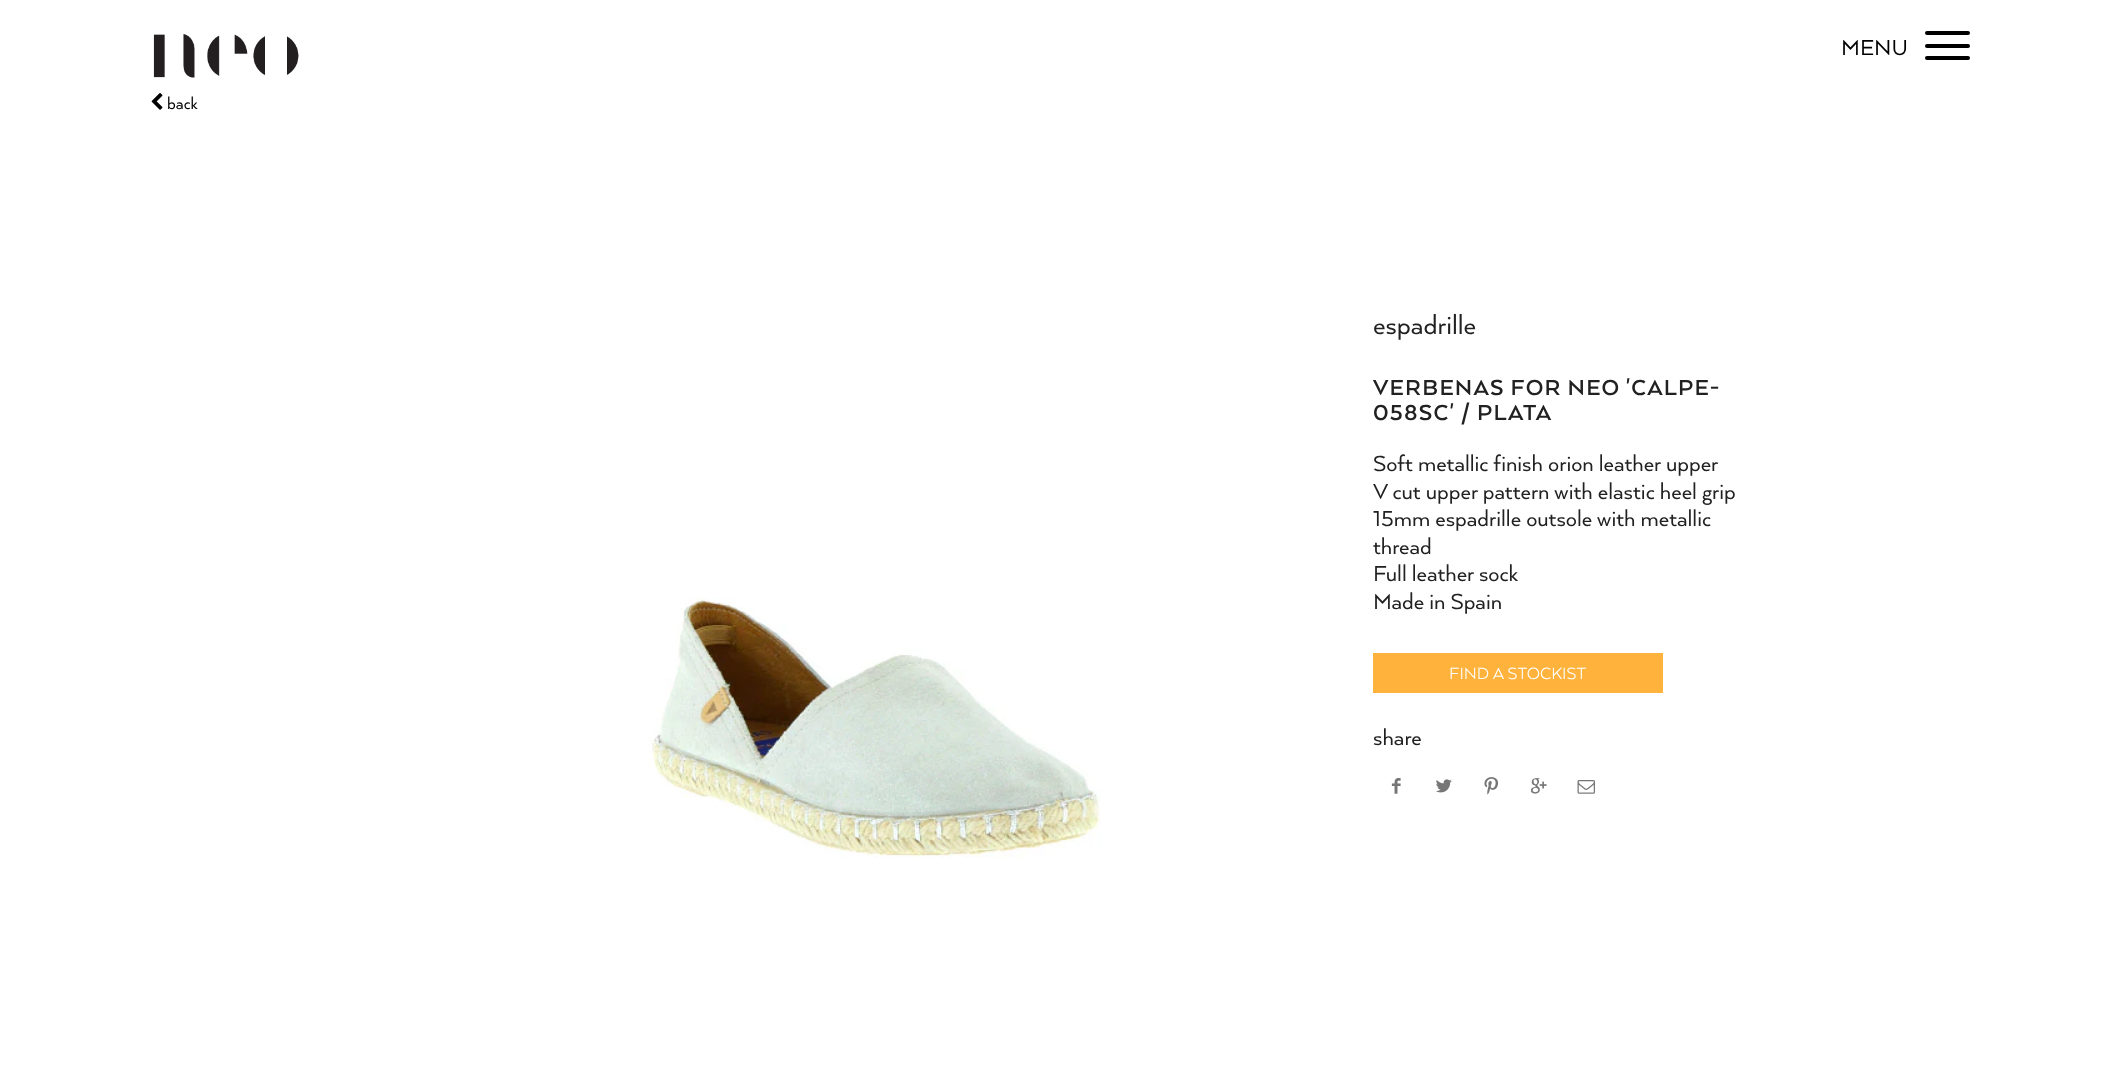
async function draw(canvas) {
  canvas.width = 2120;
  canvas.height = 1079;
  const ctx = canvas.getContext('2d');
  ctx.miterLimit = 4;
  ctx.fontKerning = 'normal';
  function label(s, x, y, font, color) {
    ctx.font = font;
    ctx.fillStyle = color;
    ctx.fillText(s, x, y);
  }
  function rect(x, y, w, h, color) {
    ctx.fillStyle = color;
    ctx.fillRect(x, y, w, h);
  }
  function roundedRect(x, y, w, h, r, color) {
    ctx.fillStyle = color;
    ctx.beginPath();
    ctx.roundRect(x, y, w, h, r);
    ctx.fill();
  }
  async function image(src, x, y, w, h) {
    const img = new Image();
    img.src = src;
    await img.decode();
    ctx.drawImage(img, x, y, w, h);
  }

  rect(0, 0, 2120, 1079, '#fff');
  await image('assets/img1.png', 153, 34, 146, 44);
  label('MENU', 1841, 55, '25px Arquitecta', '#000');
  roundedRect(1925, 31, 45, 4, 2, '#000');
  roundedRect(1925, 44, 45, 4, 2, '#000');
  roundedRect(1925, 56, 45, 4, 2, '#000');
  await image('assets/img2.png', 151, 93, 12, 17);
  label('back', 167, 109, '18.75px Arquitecta', '#000');
  await image('assets/img3.png', 649, 597, 452, 261);
  label('espadrille', 1373, 334, '30px Arquitecta', '#212121');
  ctx.letterSpacing = '1.25px';
  label('VERBENAS FOR NEO \'CALPE-', 1373, 395, 'bold 25px Arquitecta', '#212121');
  label('058SC\' / PLATA', 1373, 420, 'bold 25px Arquitecta', '#212121');
  ctx.letterSpacing = '0px';
  label('Soft metallic finish orion leather upper', 1373, 471, '25px Arquitecta', '#212121');
  label('V cut upper pattern with elastic heel grip', 1373, 499, '25px Arquitecta', '#212121');
  label('15mm espadrille outsole with metallic', 1373, 526, '25px Arquitecta', '#212121');
  label('thread', 1373, 554, '25px Arquitecta', '#212121');
  label('Full leather sock', 1373, 581, '25px Arquitecta', '#212121');
  label('Made in Spain', 1373, 609, '25px Arquitecta', '#212121');
  rect(1373, 653, 290, 40, '#ffb33d');
  label('FIND A STOCKIST', 1449, 679, '18.75px "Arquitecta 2"', '#fff');
  label('share', 1373, 745, '25px Arquitecta', '#212121');
  await image('assets/img4.png', 1391, 778, 10, 16);
  await image('assets/img5.png', 1436, 779, 16, 14);
  await image('assets/img6.png', 1484, 777, 15, 18);
  await image('assets/img7.png', 1530, 778, 17, 16);
  await image('assets/img8.png', 1577, 780, 18, 14);
}

draw(document.querySelector('canvas'));
